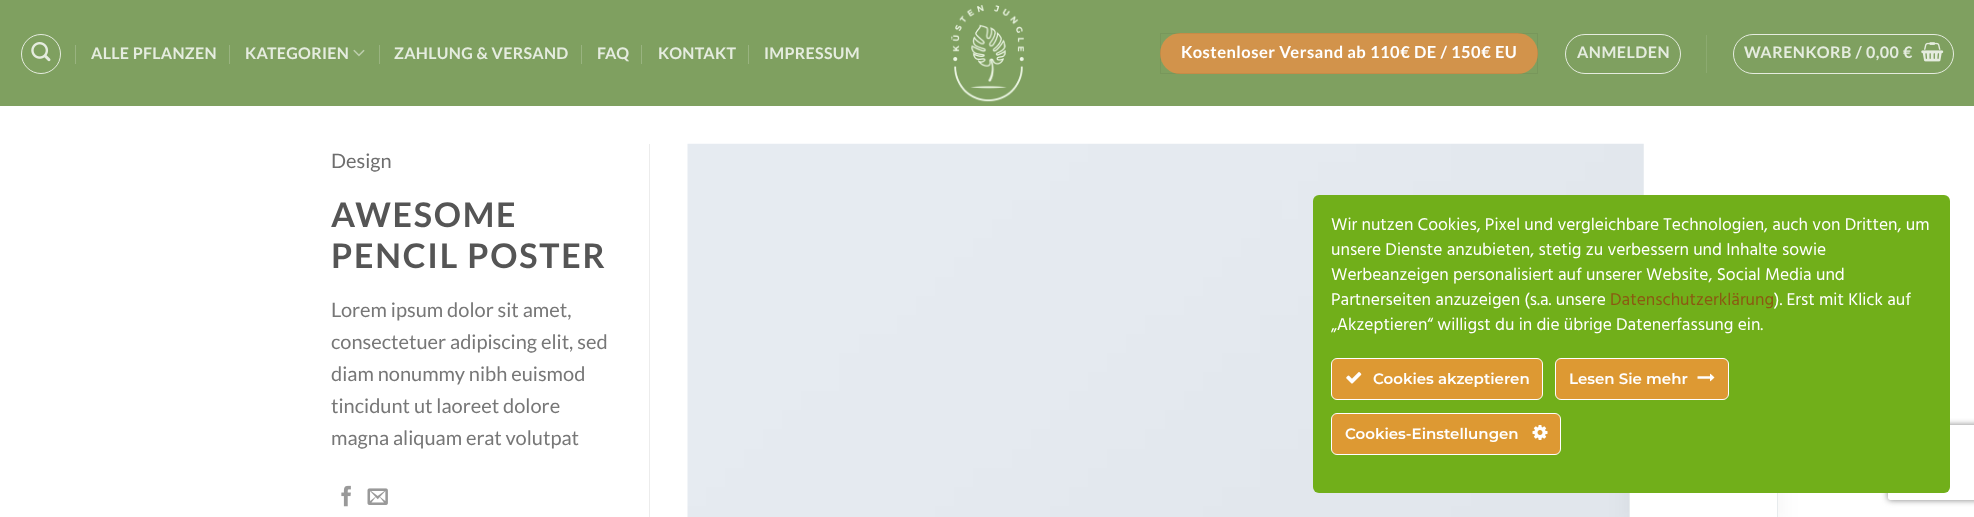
async function draw(canvas) {
  canvas.width = 1974;
  canvas.height = 517;
  const ctx = canvas.getContext('2d');
  ctx.miterLimit = 4;
  ctx.fontKerning = 'normal';
  function label(s, x, y, font, color) {
    ctx.font = font;
    ctx.fillStyle = color;
    ctx.fillText(s, x, y);
  }
  function rect(x, y, w, h, color) {
    ctx.fillStyle = color;
    ctx.fillRect(x, y, w, h);
  }
  function roundedRect(x, y, w, h, r, color) {
    ctx.fillStyle = color;
    ctx.beginPath();
    ctx.roundRect(x, y, w, h, r);
    ctx.fill();
  }
  async function image(src, x, y, w, h) {
    const img = new Image();
    img.src = src;
    await img.decode();
    ctx.drawImage(img, x, y, w, h);
  }
  let path;

  rect(0, 0, 1974, 517, '#fff');
  rect(0, 0, 1974, 106, '#7fa060');
  ctx.beginPath();
  ctx.arc(41, 54, 19.5, 0, 2 * Math.PI);
  ctx.strokeStyle = '#e5ecdf';
  ctx.stroke();
  await image('assets/img1.png', 31, 42, 20, 20);
  rect(75, 45, 1, 19, '#99b380');
  ctx.letterSpacing = '0.3px';
  label('ALLE PFLANZEN', 91, 59, 'bold 16px Lato', '#e5ecdf');
  rect(229, 45, 1, 19, '#99b380');
  label('KATEGORIEN', 245, 59, 'bold 16px Lato', '#e5ecdf');
  await image('assets/img2.png', 353, 49, 12, 8);
  rect(379, 45, 1, 19, '#99b380');
  label('ZAHLUNG & VERSAND', 394, 59, 'bold 16px Lato', '#e5ecdf');
  rect(581, 45, 1, 19, '#99b380');
  label('FAQ', 597, 59, 'bold 16px Lato', '#e5ecdf');
  rect(641, 45, 1, 19, '#99b380');
  label('KONTAKT', 658, 59, 'bold 16px Lato', '#e5ecdf');
  rect(748, 45, 1, 19, '#99b380');
  label('IMPRESSUM', 764, 59, 'bold 16px Lato', '#e5ecdf');
  await image('assets/img3.png', 951, 5, 73, 97);
  roundedRect(1160, 33, 378, 41, 20.5, '#d2934b');
  ctx.strokeStyle = '#0000000d';
  ctx.strokeRect(1160.5, 33.5, 377, 40);
  ctx.letterSpacing = '0.5px';
  label('Kostenloser Versand ab 110€ DE / 150€ EU', 1181, 58, 'bold 16.5px Lato', '#fff');
  ctx.beginPath();
  ctx.roundRect(1565.5, 34.5, 115, 39, 19.5);
  ctx.strokeStyle = '#e5ecdf';
  ctx.stroke();
  label('ANMELDEN', 1577, 58, 'bold 16px Lato', '#e5ecdf');
  rect(1706, 35, 1, 38, '#8caa70');
  ctx.beginPath();
  ctx.roundRect(1733.5, 34.5, 220, 39, 19.5);
  ctx.stroke();
  label('WARENKORB / 0,00 €', 1744, 58, 'bold 16px Lato', '#e5ecdf');
  await image('assets/img4.png', 1921, 42, 23, 20);
  rect(649, 144, 1, 373, '#ececec');
  ctx.letterSpacing = '0px';
  label('Design', 331, 168, '20px Lato', '#6e6e6e');
  ctx.letterSpacing = '1.75px';
  label('AWESOME', 331, 227, 'bold 34px Lato', '#555');
  label('PENCIL POSTER', 331, 268, 'bold 34px Lato', '#555');
  ctx.letterSpacing = '0px';
  label('Lorem ipsum dolor sit amet,', 331, 317, '20px Lato', '#777');
  label('consectetuer adipiscing elit, sed', 331, 349, '20px Lato', '#777');
  label('diam nonummy nibh euismod', 331, 381, '20px Lato', '#777');
  label('tincidunt ut laoreet dolore', 331, 413, '20px Lato', '#777');
  label('magna aliquam erat volutpat', 331, 445, '20px Lato', '#777');
  await image('assets/img5.png', 341, 485, 10, 22);
  await image('assets/img6.png', 367, 488, 21, 17);
  await image('assets/img7.png', 687, 143, 957, 374);
  ctx.fillStyle = '#0000000d';
  ctx.filter = 'blur(12.5px)';
  ctx.beginPath();
  ctx.roundRect(1629, 461, 149, 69, 10);
  ctx.fill();
  ctx.filter = 'none';
  rect(1629, 493, 149, 24, '#fff');
  ctx.strokeStyle = '#1438521a';
  ctx.strokeRect(1629.5, 449.5, 148, 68);
  ctx.save();
  path = new Path2D('M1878 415H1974V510H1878ZM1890.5 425H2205.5C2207 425 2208 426 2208 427.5V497.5C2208 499 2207 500 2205.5 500H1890.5C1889 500 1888 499 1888 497.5V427.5C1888 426 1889 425 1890.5 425Z');
  ctx.clip(path, 'evenodd');
  ctx.fillStyle = '#808080';
  ctx.filter = 'blur(3px)';
  ctx.beginPath();
  ctx.roundRect(1888, 425, 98, 75, 2.5);
  ctx.fill();
  ctx.filter = 'none';
  ctx.restore();
  roundedRect(1313, 195, 637, 298, 6, '#71af1a');
  label('Wir nutzen Cookies, Pixel und vergleichbare Technologien, auch von Dritten, um', 1331, 230, '17.5px Hind', '#fff');
  label('unsere Dienste anzubieten, stetig zu verbessern und Inhalte sowie', 1331, 255, '17.5px Hind', '#fff');
  label('Werbeanzeigen personalisiert auf unserer Website, Social Media und', 1331, 280, '17.5px Hind', '#fff');
  label('Partnerseiten anzuzeigen (s.a. unsere', 1331, 305, '17.5px Hind', '#fff');
  label('Datenschutzerklärung', 1610, 305, '17.5px Hind', '#8b5912');
  label('). Erst mit Klick auf', 1774, 305, '17.5px Hind', '#fff');
  label('„Akzeptieren“ willigst du in die übrige Datenerfassung ein.', 1331, 330, '17.5px Hind', '#fff');
  ctx.fillStyle = '#d93';
  ctx.beginPath();
  ctx.roundRect(1331.5, 358.5, 211, 41, 5.5);
  ctx.fill();
  ctx.strokeStyle = '#fff';
  ctx.stroke();
  await image('assets/img8.png', 1346, 372, 16, 12);
  label('Cookies akzeptieren', 1373, 384, '600 15px Montserrat', '#fff');
  ctx.fillStyle = '#d93';
  ctx.beginPath();
  ctx.roundRect(1555.5, 358.5, 173, 41, 5.5);
  ctx.fill();
  ctx.stroke();
  label('Lesen Sie mehr', 1569, 384, '600 15px Montserrat', '#fff');
  await image('assets/img9.png', 1697, 373, 18, 9);
  ctx.fillStyle = '#d93';
  ctx.beginPath();
  ctx.roundRect(1331.5, 413.5, 229, 41, 5.5);
  ctx.fill();
  ctx.stroke();
  label('Cookies-Einstellungen', 1345, 439, '600 15px Montserrat', '#fff');
  await image('assets/img10.png', 1532, 425, 16, 15);
}

draw(document.querySelector('canvas'));
